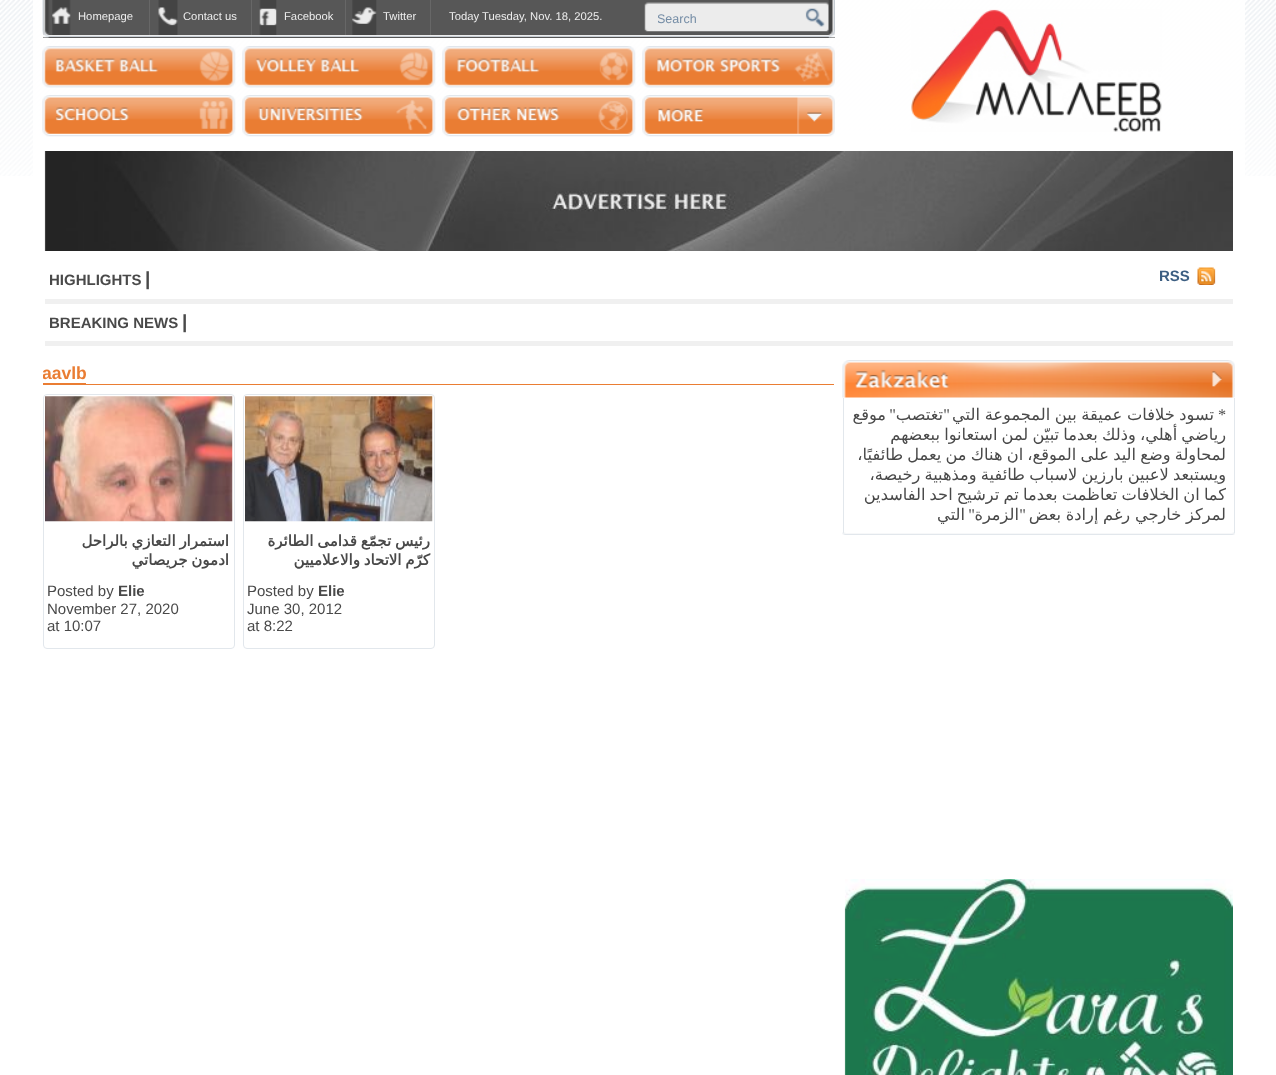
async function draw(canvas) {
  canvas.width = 1276;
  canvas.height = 1075;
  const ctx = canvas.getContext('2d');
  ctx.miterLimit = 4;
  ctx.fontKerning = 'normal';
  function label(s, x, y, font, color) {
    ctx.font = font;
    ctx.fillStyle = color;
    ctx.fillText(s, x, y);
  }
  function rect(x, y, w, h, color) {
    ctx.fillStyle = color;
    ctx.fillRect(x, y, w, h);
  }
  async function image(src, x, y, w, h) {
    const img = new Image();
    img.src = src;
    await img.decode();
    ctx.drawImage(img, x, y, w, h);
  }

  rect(0, 0, 1276, 1075, '#fff');
  await image('assets/img1.png', 0, 0, 1276, 176);
  await image('assets/img2.png', 911, 9, 251, 123);
  rect(43, 0, 792, 38, '#575757');
  rect(43, 36, 792, 1, '#c7cdd4');
  await image('assets/img4.png', 644, 2, 185, 30);
  rect(43, 35, 792, 1, '#ededed');
  await image('assets/img3.png', 828, 0, 7, 38);
  ctx.save();
  ctx.beginPath();
  ctx.rect(658, 13, 133, 13);
  ctx.clip();
  label('Search', 657, 23, '12.5px Liberation Sans', '#758da6');
  ctx.restore();
  label('Today Tuesday, Nov. 18, 2025.', 449, 20, '11.25px Liberation Sans', '#ededed');
  rect(430, 0, 1, 35, '#676767');
  label('Twitter', 383, 20, '11.25px Liberation Sans', '#ededed');
  await image('assets/img5.png', 352, 0, 25, 35);
  rect(345, 0, 1, 35, '#676767');
  label('Facebook', 284, 20, '11.25px Liberation Sans', '#ededed');
  await image('assets/img6.png', 259, 0, 18, 35);
  rect(251, 0, 1, 35, '#676767');
  label('Contact us', 183, 20, '11.25px Liberation Sans', '#ededed');
  await image('assets/img7.png', 158, 0, 20, 35);
  rect(149, 0, 1, 35, '#676767');
  label('Homepage', 78, 20, '11.25px Liberation Sans', '#ededed');
  await image('assets/img8.png', 52, 0, 19, 35);
  await image('assets/img9.png', 42, 0, 8, 38);
  await image('assets/img10.png', 642, 46, 193, 42);
  await image('assets/img11.png', 442, 46, 194, 42);
  await image('assets/img12.png', 242, 46, 194, 42);
  await image('assets/img13.png', 42, 46, 194, 42);
  await image('assets/img14.png', 642, 95, 193, 42);
  await image('assets/img15.png', 442, 95, 194, 42);
  await image('assets/img16.png', 242, 95, 194, 42);
  await image('assets/img17.png', 42, 95, 194, 42);
  await image('assets/img18.png', 44, 151, 1189, 100);
  rect(45, 299, 1188, 5, '#f0f0f0');
  await image('assets/img19.png', 1197, 267, 19, 18);
  label('RSS', 1159, 281, 'bold 15px Liberation Sans', '#3d5f82');
  label('|', 145, 285, 'bold 19px Liberation Sans', '#494949');
  label('HIGHLIGHTS', 49, 285, 'bold 15px Liberation Sans', '#494949');
  rect(45, 341, 1188, 5, '#f0f0f0');
  label('|', 182, 328, 'bold 19px Liberation Sans', '#494949');
  label('BREAKING NEWS', 49, 328, 'bold 15px Liberation Sans', '#494949');
  await image('assets/img20.png', 842, 360, 393, 38);
  rect(1234, 398, 1, 135, '#e2e7ec');
  rect(843, 398, 1, 135, '#e2e7ec');
  ctx.direction = 'rtl';
  label('*', 1226, 420, '16.25px Liberation Serif', '#494949');
  ctx.wordSpacing = '-0.5px';
  label('تسود خلافات عميقة بين المجموعة التي', 1214, 420, '16.25px DejaVu Sans', '#494949');
  ctx.wordSpacing = '0px';
  label('"', 950, 420, '16.25px Liberation Serif', '#494949');
  label('تغتصب', 943, 420, '16.25px DejaVu Sans', '#494949');
  label('"', 896, 420, '16.25px Liberation Serif', '#494949');
  label('موقع', 886, 420, '16.25px DejaVu Sans', '#494949');
  ctx.wordSpacing = '-1px';
  label('رياضي أهلي، وذلك بعدما تبيّن لمن استعانوا ببعضهم', 1226, 440, '16.25px DejaVu Sans', '#494949');
  label('لمحاولة وضع اليد على الموقع، ان هناك من يعمل طائفيًا،', 1226, 460, '16.25px DejaVu Sans', '#494949');
  label('ويستبعد لاعبين بارزين لاسباب طائفية ومذهبية رخيصة،', 1226, 480, '16.25px DejaVu Sans', '#494949');
  label('كما ان الخلافات تعاظمت بعدما تم ترشيح احد الفاسدين', 1226, 500, '16.25px DejaVu Sans', '#494949');
  ctx.wordSpacing = '-0.5px';
  label('لمركز خارجي رغم إرادة بعض', 1226, 520, '16.25px DejaVu Sans', '#494949');
  ctx.wordSpacing = '0px';
  label('"', 1026, 520, '16.25px Liberation Serif', '#494949');
  label('الزمرة', 1019, 520, '16.25px DejaVu Sans', '#494949');
  label('"', 975, 520, '16.25px Liberation Serif', '#494949');
  label('التي', 965, 520, '16.25px DejaVu Sans', '#494949');
  await image('assets/img21.png', 842, 532, 393, 3);
  await image('assets/img22.png', 844, 879, 389, 196);
  rect(43, 384, 791, 1, '#ea7d33');
  rect(43, 383, 43, 1, '#ea7d33');
  ctx.save();
  ctx.beginPath();
  ctx.rect(43, 349, 800, 311);
  ctx.clip();
  ctx.direction = 'ltr';
  label('aavlb', 42, 379, 'bold 17.5px Liberation Sans', '#ea7d33');
  ctx.restore();
  ctx.beginPath();
  ctx.roundRect(243.5, 394.5, 191, 254, 3.5);
  ctx.strokeStyle = '#e2e7ec';
  ctx.stroke();
  await image('assets/img23.png', 245, 396, 188, 126);
  ctx.wordSpacing = '-1px';
  label('رئيس تجمّع قدامى الطائرة', 430, 546, 'bold 15px DejaVu Sans', '#494949');
  label('كرّم الاتحاد والاعلاميين', 430, 565, 'bold 15px DejaVu Sans', '#494949');
  ctx.wordSpacing = '0px';
  ctx.direction = 'ltr';
  label('Elie', 318, 596, 'bold 15px Liberation Sans', '#494949');
  label('Posted by', 247, 596, '15px Liberation Sans', '#494949');
  label('June 30, 2012', 247, 614, '15px Liberation Sans', '#494949');
  label('at 8:22', 247, 631, '15px Liberation Sans', '#494949');
  ctx.beginPath();
  ctx.roundRect(43.5, 394.5, 191, 254, 3.5);
  ctx.stroke();
  await image('assets/img24.png', 45, 396, 188, 126);
  ctx.wordSpacing = '-1px';
  ctx.direction = 'rtl';
  label('استمرار التعازي بالراحل', 229, 546, 'bold 15px DejaVu Sans', '#494949');
  label('ادمون جريصاتي', 229, 565, 'bold 15px DejaVu Sans', '#494949');
  ctx.wordSpacing = '0px';
  ctx.direction = 'ltr';
  label('Elie', 118, 596, 'bold 15px Liberation Sans', '#494949');
  label('Posted by', 47, 596, '15px Liberation Sans', '#494949');
  label('November 27, 2020', 47, 614, '15px Liberation Sans', '#494949');
  label('at 10:07', 47, 631, '15px Liberation Sans', '#494949');
}

draw(document.querySelector('canvas'));
